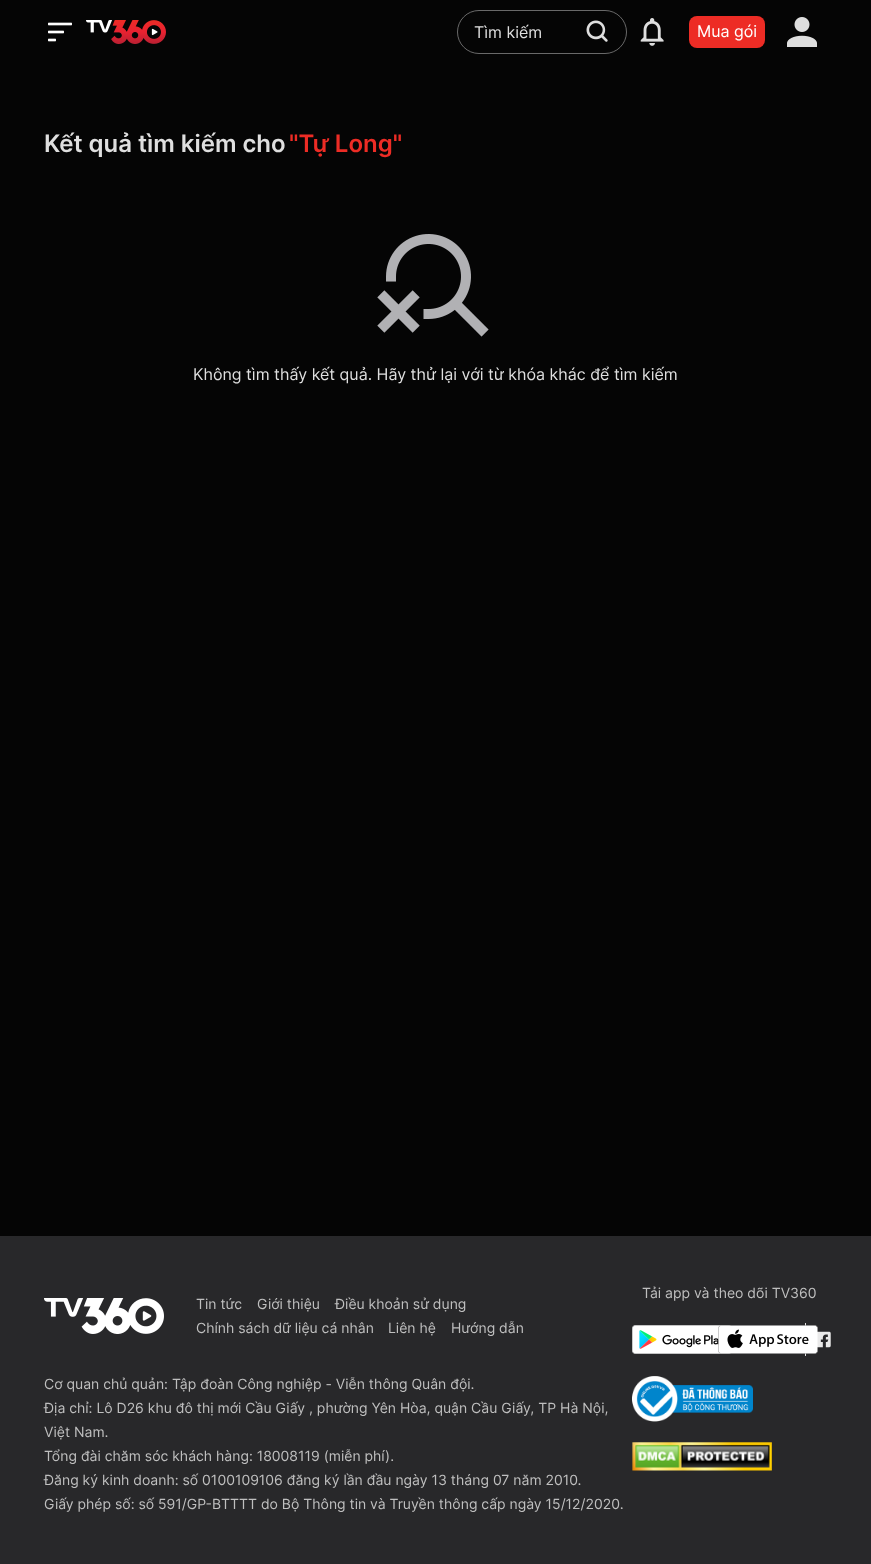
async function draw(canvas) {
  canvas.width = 871;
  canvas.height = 1564;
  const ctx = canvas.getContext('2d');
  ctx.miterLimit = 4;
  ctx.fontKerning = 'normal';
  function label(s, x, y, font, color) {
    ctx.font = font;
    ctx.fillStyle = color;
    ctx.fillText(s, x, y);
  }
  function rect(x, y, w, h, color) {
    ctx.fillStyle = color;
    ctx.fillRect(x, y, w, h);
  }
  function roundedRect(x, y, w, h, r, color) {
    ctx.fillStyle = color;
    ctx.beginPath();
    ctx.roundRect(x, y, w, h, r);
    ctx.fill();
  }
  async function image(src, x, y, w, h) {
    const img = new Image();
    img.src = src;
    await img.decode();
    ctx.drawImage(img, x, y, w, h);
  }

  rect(0, 0, 871, 1564, '#050505');
  await image('assets/img1.png', 48, 22, 24, 20);
  await image('assets/img2.png', 86, 20, 80, 24);
  ctx.beginPath();
  ctx.roundRect(457.5, 10.5, 169, 43, 21.5);
  ctx.strokeStyle = '#696969';
  ctx.stroke();
  label('Tìm kiếm', 474, 38, '16px Inter', '#dfdfdf');
  await image('assets/img3.png', 586, 20, 22, 22);
  await image('assets/img4.png', 640, 18, 24, 28);
  roundedRect(689, 16, 76, 32, 8, '#ed2c25');
  label('Mua gói', 697, 37, '16px Inter', '#fff');
  await image('assets/img5.png', 787, 17, 30, 30);
  label('Kết quả tìm kiếm cho', 44, 152, '600 24px Inter', '#dfdfdf');
  label('"Tự Long"', 289, 152, '600 24px Inter', '#ed2c25');
  await image('assets/img6.png', 377, 234, 112, 103);
  label('Không tìm thấy kết quả. Hãy thử lại với từ khóa khác để tìm kiếm', 193, 380, '16px Inter', '#dfdfdf');
  rect(0, 1236, 871, 328, '#28282a');
  label('Tải app và theo dõi TV360', 642, 1298, '14px Inter', '#bfbfbf');
  await image('assets/img7.png', 632, 1325, 99, 29);
  rect(805, 1323, 1, 33, '#e3e3e3');
  await image('assets/img8.png', 718, 1325, 100, 29);
  await image('assets/img9.png', 817, 1331, 14, 17);
  await image('assets/img10.png', 632, 1376, 121, 46);
  await image('assets/img11.png', 632, 1442, 140, 29);
  await image('assets/img12.png', 44, 1298, 120, 36);
  label('Tin tức', 196, 1309, '14px Inter', '#bfbfbf');
  label('Giới thiệu', 257, 1309, '14px Inter', '#bfbfbf');
  label('Điều khoản sử dụng', 335, 1309, '14px Inter', '#bfbfbf');
  label('Chính sách dữ liệu cá nhân', 196, 1333, '14px Inter', '#bfbfbf');
  label('Liên hệ', 388, 1333, '14px Inter', '#bfbfbf');
  label('Hướng dẫn', 451, 1333, '14px Inter', '#bfbfbf');
  label('Cơ quan chủ quản: Tập đoàn Công nghiệp - Viễn thông Quân đội.', 44, 1389, '14px Inter', '#bfbfbf');
  label('Địa chỉ: Lô D26 khu đô thị mới Cầu Giấy , phường Yên Hòa, quận Cầu Giấy, TP Hà Nội,', 44, 1413, '14px Inter', '#bfbfbf');
  label('Việt Nam.', 44, 1437, '14px Inter', '#bfbfbf');
  label('Tổng đài chăm sóc khách hàng: 18008119 (miễn phí).', 44, 1461, '14px Inter', '#bfbfbf');
  label('Đăng ký kinh doanh: số 0100109106 đăng ký lần đầu ngày 13 tháng 07 năm 2010.', 44, 1485, '14px Inter', '#bfbfbf');
  label('Giấy phép số: số 591/GP-BTTTT do Bộ Thông tin và Truyền thông cấp ngày 15/12/2020.', 44, 1509, '14px Inter', '#bfbfbf');
}

draw(document.querySelector('canvas'));
